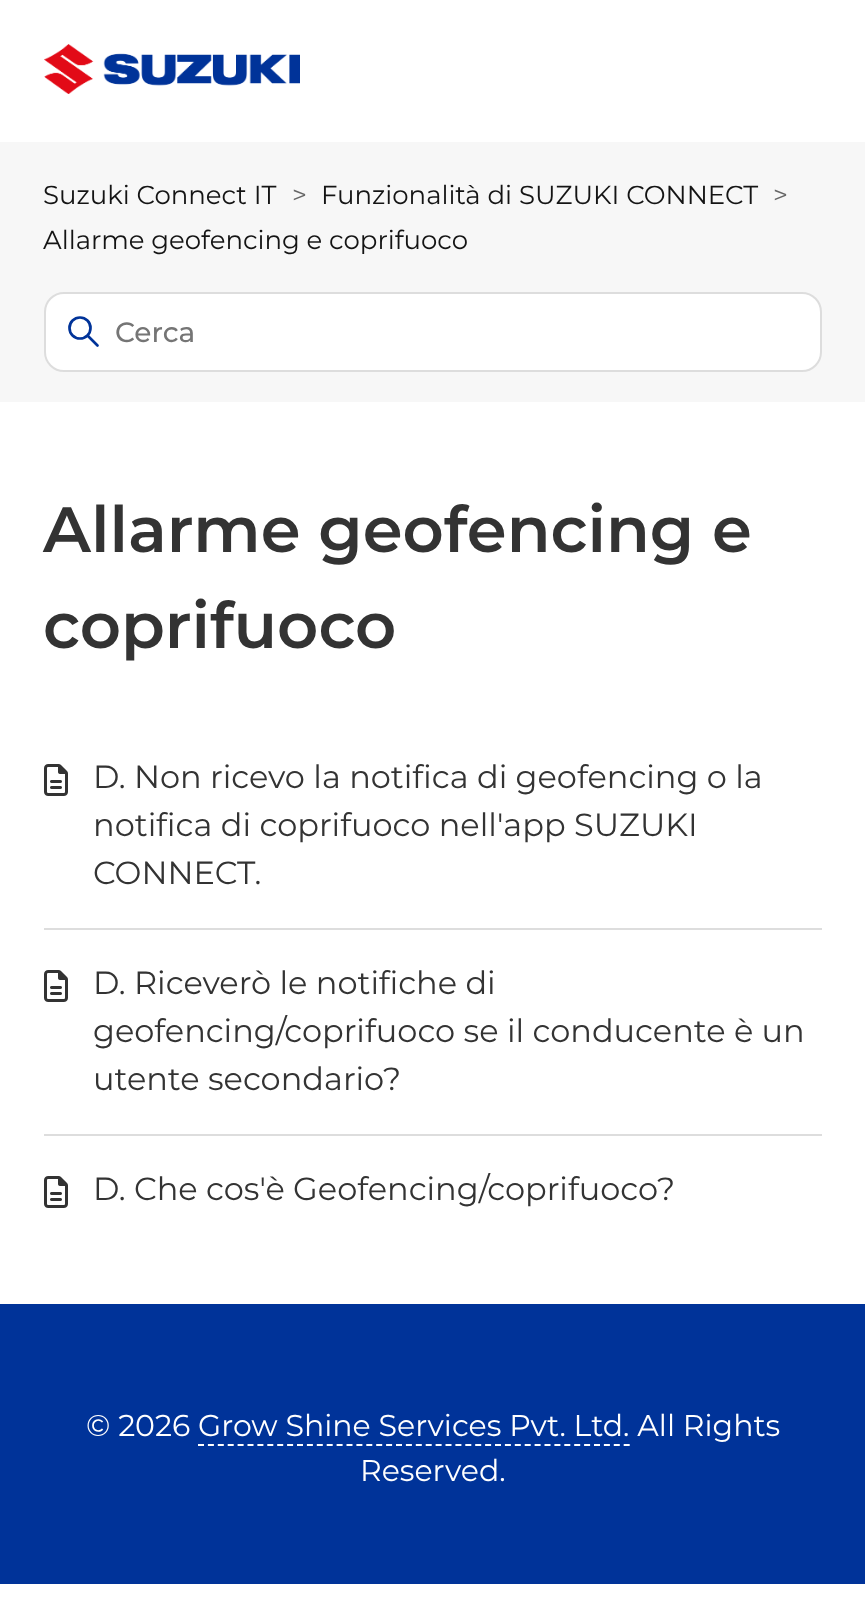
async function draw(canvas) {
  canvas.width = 865;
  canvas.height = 1603;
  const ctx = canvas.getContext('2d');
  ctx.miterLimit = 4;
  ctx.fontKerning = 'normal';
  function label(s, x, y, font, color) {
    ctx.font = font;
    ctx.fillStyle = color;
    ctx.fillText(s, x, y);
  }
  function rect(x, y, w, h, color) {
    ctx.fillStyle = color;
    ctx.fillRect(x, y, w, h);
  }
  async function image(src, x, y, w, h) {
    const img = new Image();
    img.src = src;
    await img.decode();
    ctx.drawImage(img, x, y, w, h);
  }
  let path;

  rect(0, 0, 865, 1603, '#fff');
  await image('assets/img1.png', 44, 44, 256, 50);
  rect(0, 142, 865, 260, '#f7f7f7');
  label('Suzuki Connect IT', 43, 204, '26px Montserrat', '#141414');
  label('>', 292, 204, '26px Montserrat', '#666');
  label('Funzionalità di SUZUKI CONNECT', 321, 204, '26px Montserrat', '#141414');
  label('>', 773, 204, '26px Montserrat', '#666');
  label('Allarme geofencing e coprifuoco', 43, 249, '26px Montserrat', '#141414');
  ctx.fillStyle = '#fff';
  ctx.beginPath();
  ctx.roundRect(45, 293, 776, 78, 19);
  ctx.fill();
  ctx.strokeStyle = '#ddd';
  ctx.lineWidth = 2;
  ctx.stroke();
  ctx.beginPath();
  ctx.arc(80, 328, 10.5, 0, 2 * Math.PI);
  ctx.strokeStyle = '#039';
  ctx.lineWidth = 2.7;
  ctx.stroke();
  path = new Path2D('M97.5 345.5L88 336');
  ctx.lineCap = 'round';
  ctx.stroke(path);
  label('Cerca', 115, 342, '500 28px Montserrat', '#757575');
  label('Allarme geofencing e', 43, 552, '600 64px Montserrat', '#333');
  label('coprifuoco', 43, 648, '600 64px Montserrat', '#333');
  rect(44, 928, 778, 2, '#ddd');
  await image('assets/img2.png', 44, 764, 24, 32);
  label('D. Non ricevo la notifica di geofencing o la', 93, 788, '32px Montserrat', '#333');
  label('notifica di coprifuoco nell\'app SUZUKI', 93, 836, '32px Montserrat', '#333');
  label('CONNECT.', 93, 884, '32px Montserrat', '#333');
  rect(44, 1134, 778, 2, '#ddd');
  await image('assets/img2.png', 44, 970, 24, 32);
  label('D. Riceverò le notifiche di', 93, 994, '32px Montserrat', '#333');
  label('geofencing/coprifuoco se il conducente è un', 93, 1042, '32px Montserrat', '#333');
  label('utente secondario?', 93, 1090, '32px Montserrat', '#333');
  await image('assets/img2.png', 44, 1176, 24, 32);
  label('D. Che cos\'è Geofencing/coprifuoco?', 93, 1200, '32px Montserrat', '#333');
  rect(0, 1304, 865, 280, '#039');
  label('© 2026 Grow Shine Services Pvt. Ltd. All Rights', 86, 1436, '30px Montserrat', '#fff');
  path = new Path2D('M198 1445H630');
  ctx.strokeStyle = '#fff';
  ctx.lineWidth = 2;
  ctx.lineCap = 'butt';
  ctx.setLineDash([6, 3.9]);
  ctx.stroke(path);
  label('Reserved.', 360, 1481, '30px Montserrat', '#fff');
}

draw(document.querySelector('canvas'));
